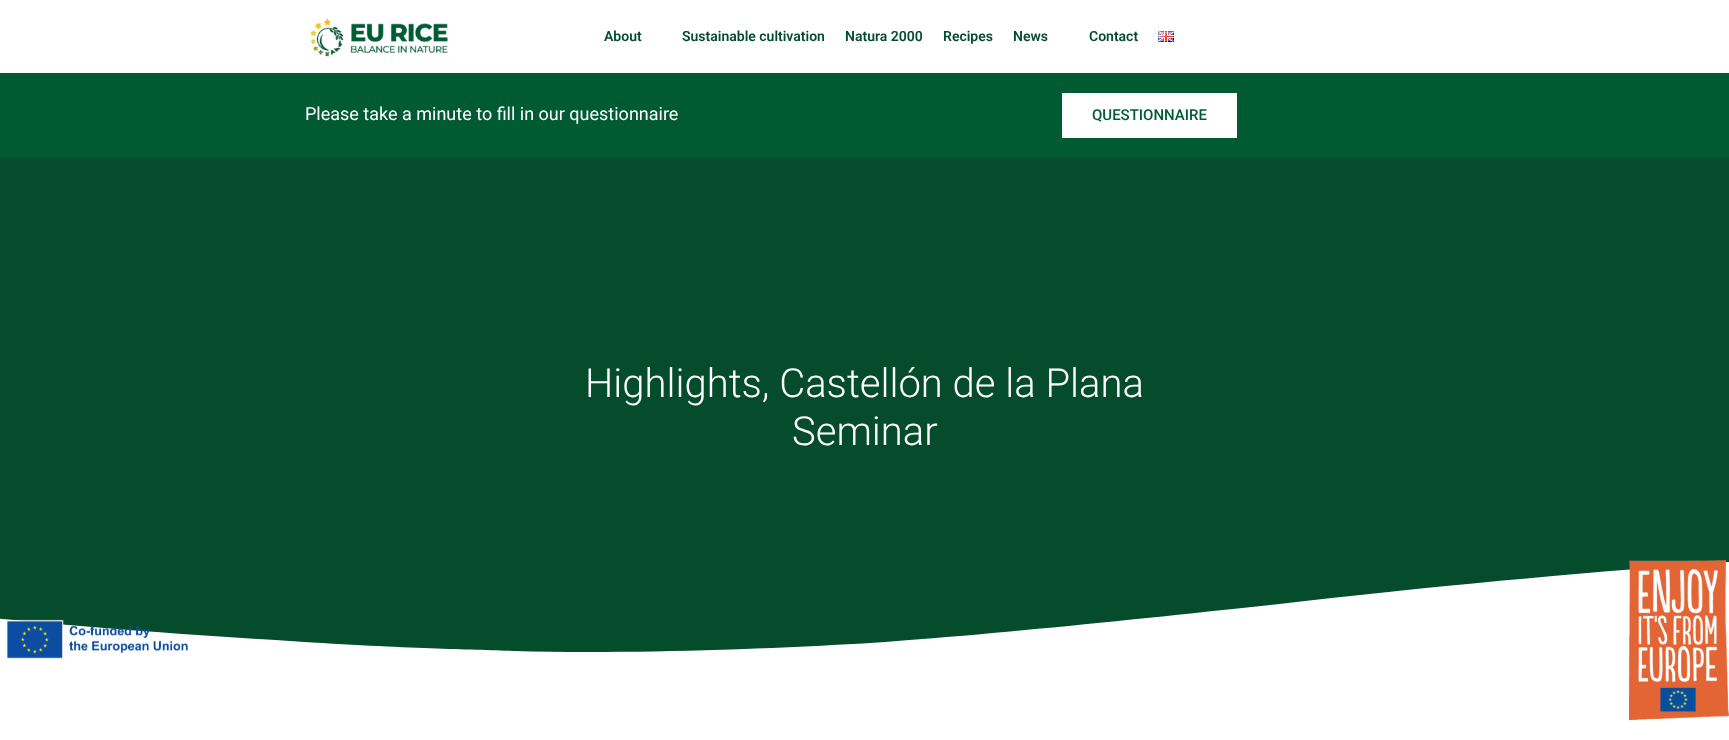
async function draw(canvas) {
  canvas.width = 1729;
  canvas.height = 740;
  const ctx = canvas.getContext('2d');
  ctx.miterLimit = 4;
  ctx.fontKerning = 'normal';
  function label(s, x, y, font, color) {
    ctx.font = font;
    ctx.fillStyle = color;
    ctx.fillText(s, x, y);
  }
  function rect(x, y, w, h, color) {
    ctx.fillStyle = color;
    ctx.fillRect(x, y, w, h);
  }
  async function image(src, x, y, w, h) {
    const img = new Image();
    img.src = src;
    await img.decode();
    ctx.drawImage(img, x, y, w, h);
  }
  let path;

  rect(0, 0, 1729, 740, '#fff');
  await image('assets/img1.png', 310, 18, 138, 39);
  label('About', 604, 41, '600 14px Roboto', '#044c2c');
  label('Sustainable cultivation', 682, 41, '600 14px Roboto', '#044c2c');
  label('Natura 2000', 845, 41, '600 14px Roboto', '#044c2c');
  label('Recipes', 943, 41, '600 14px Roboto', '#044c2c');
  label('News', 1013, 41, '600 14px Roboto', '#044c2c');
  label('Contact', 1089, 41, '600 14px Roboto', '#044c2c');
  await image('assets/img2.png', 1158, 31, 16, 11);
  rect(0, 73, 1729, 85, '#005b33');
  label('Please take a minute to fill in our questionnaire', 305, 120, '18px Roboto', '#fff');
  rect(1062, 93, 175, 45, '#fff');
  label('QUESTIONNAIRE', 1092, 120, '500 15px Roboto', '#005b33');
  rect(0, 158, 1729, 494, '#044c2c');
  label('Highlights, Castellón de la Plana', 585, 397, '300 40px Roboto', '#fff');
  label('Seminar', 792, 445, '300 40px Roboto', '#fff');
  path = new Path2D('M514 651C615 654 745 650 853 644C959 638 1172 616 1305 601C1646 563 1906 548 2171 542C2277 539 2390 538 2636 545C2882 552 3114 575 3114 575V658H-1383V622C-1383 622-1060 583-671 585C-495 586-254 593-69 612C27 622 166 634 290 641C412 649 467 649 514 651Z');
  ctx.fill(path);
  await image('assets/img3.png', 6, 619, 182, 40);
  await image('assets/img4.png', 1629, 560, 100, 161);
}

draw(document.querySelector('canvas'));
